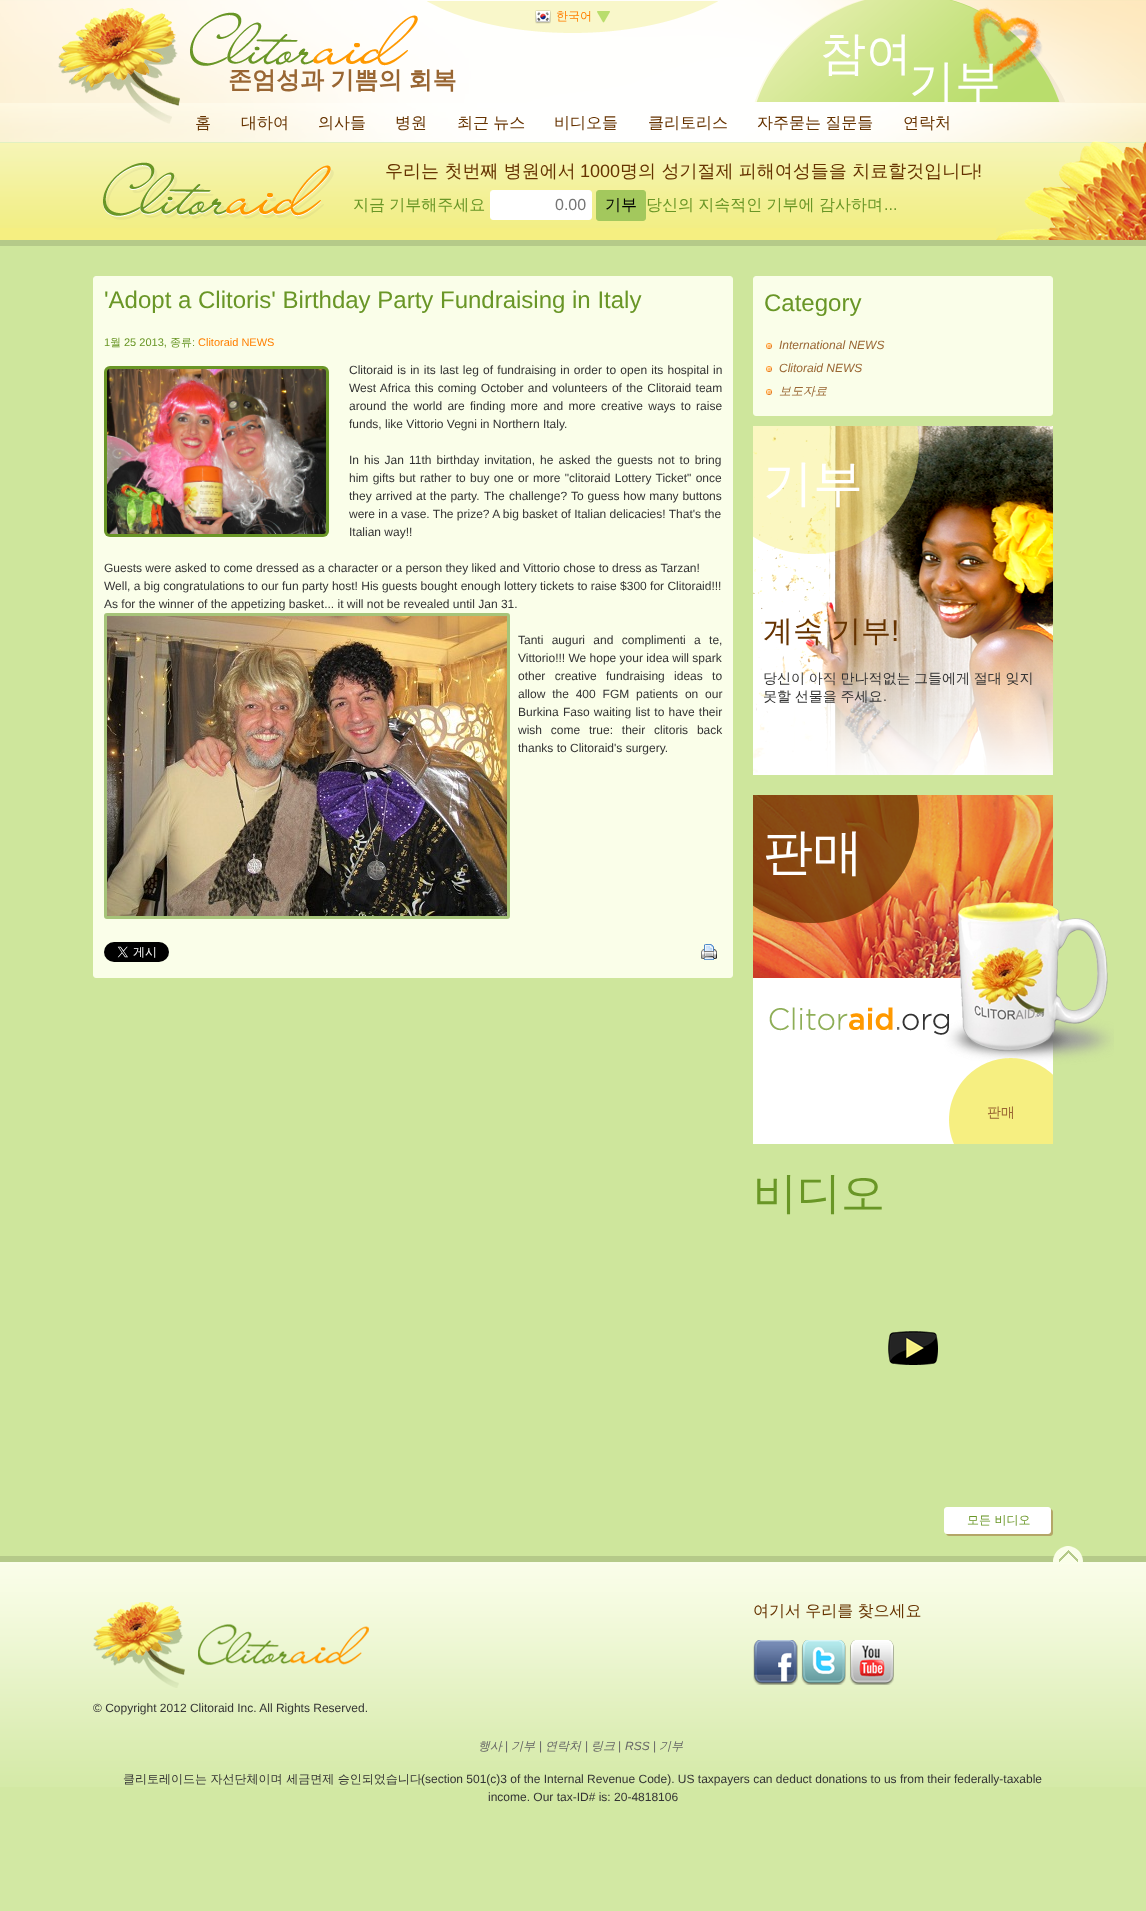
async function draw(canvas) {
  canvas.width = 1146;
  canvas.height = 1911;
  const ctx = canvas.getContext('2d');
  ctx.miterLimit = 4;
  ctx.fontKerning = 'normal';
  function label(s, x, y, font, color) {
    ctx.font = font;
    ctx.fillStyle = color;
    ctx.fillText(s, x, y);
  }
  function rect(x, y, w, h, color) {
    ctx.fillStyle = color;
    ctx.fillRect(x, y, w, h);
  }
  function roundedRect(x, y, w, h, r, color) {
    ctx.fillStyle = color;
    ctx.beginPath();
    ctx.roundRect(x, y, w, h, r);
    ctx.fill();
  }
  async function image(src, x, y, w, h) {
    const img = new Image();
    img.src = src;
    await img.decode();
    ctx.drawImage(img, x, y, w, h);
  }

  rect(0, 0, 1146, 1911, '#d2e8a3');
  await image('assets/img1.png', 0, 0, 1146, 142);
  await image('assets/img2.png', 1092, 141, 54, 1);
  await image('assets/img3.png', 0, 0, 1146, 142);
  await image('assets/img4.png', 427, 1, 291, 32);
  await image('assets/img5.png', 535, 10, 16, 14);
  label('한국어', 556, 20, '500 12px WenQuanYi Zen Hei', '#ff7f00');
  await image('assets/img6.png', 597, 11, 13, 12);
  await image('assets/img7.png', 58, 8, 360, 95);
  ctx.wordSpacing = '-1px';
  label('존엄성과 기쁨의 회복', 228, 88, 'bold 24px WenQuanYi Zen Hei', '#963');
  await image('assets/img8.png', 754, 0, 311, 102);
  ctx.wordSpacing = '0px';
  label('참여', 820, 69, '500 46px WenQuanYi Zen Hei', '#fff');
  label('기부', 909, 97, '500 46px WenQuanYi Zen Hei', '#fff');
  await image('assets/img9.png', 137, 103, 43, 21);
  label('홈', 195, 128, '500 16px WenQuanYi Zen Hei', '#630');
  label('대하여', 241, 128, '500 16px WenQuanYi Zen Hei', '#630');
  label('의사들', 318, 128, '500 16px WenQuanYi Zen Hei', '#630');
  label('병원', 395, 128, '500 16px WenQuanYi Zen Hei', '#630');
  ctx.wordSpacing = '-0.5px';
  label('최근 뉴스', 457, 128, '500 16px WenQuanYi Zen Hei', '#630');
  ctx.wordSpacing = '0px';
  label('비디오들', 554, 128, '500 16px WenQuanYi Zen Hei', '#630');
  label('클리토리스', 648, 128, '500 16px WenQuanYi Zen Hei', '#630');
  ctx.wordSpacing = '-0.5px';
  label('자주묻는 질문들', 757, 128, '500 16px WenQuanYi Zen Hei', '#630');
  ctx.wordSpacing = '0px';
  label('연락처', 903, 128, '500 16px WenQuanYi Zen Hei', '#630');
  rect(0, 228, 996, 12, '#f5ef81');
  await image('assets/img10.png', 0, 142, 996, 86);
  await image('assets/img11.png', 996, 142, 150, 98);
  await image('assets/img12.png', 103, 162, 231, 58);
  label('우리는 첫번째 병원에서', 385, 177, '500 18px WenQuanYi Zen Hei', '#630');
  label('1000', 580, 177, '18px Liberation Sans', '#630');
  label('명의 성기절제 피해여성들을 치료할것입니다', 620, 177, '500 18px WenQuanYi Zen Hei', '#630');
  label('!', 977, 177, '18px Liberation Sans', '#630');
  ctx.wordSpacing = '-0.5px';
  label('지금 기부해주세요', 353, 210, '500 16px WenQuanYi Zen Hei', '#699626');
  ctx.fillStyle = '#fff';
  ctx.beginPath();
  ctx.roundRect(490.5, 190.5, 101, 29, 2.5);
  ctx.fill();
  ctx.strokeStyle = '#fff';
  ctx.stroke();
  ctx.wordSpacing = '0px';
  label('0.00', 555, 210, '16px Liberation Sans', '#757575');
  ctx.fillStyle = '#a3c85d';
  ctx.beginPath();
  ctx.roundRect(596.5, 190.5, 49, 30, 2.5);
  ctx.fill();
  ctx.strokeStyle = '#a3c85d';
  ctx.stroke();
  label('기부', 605, 210, '500 16px WenQuanYi Zen Hei', '#000');
  ctx.wordSpacing = '-0.5px';
  label('당신의 지속적인 기부에 감사하며', 646, 210, '500 16px WenQuanYi Zen Hei', '#699626');
  ctx.wordSpacing = '0px';
  label('...', 884, 210, '16px Liberation Sans', '#699626');
  rect(0, 246, 1146, 1310, '#cee69c');
  rect(0, 240, 1146, 6, '#b5ca89');
  rect(0, 1556, 1146, 6, '#b5ca89');
  ctx.fillStyle = '#fafee9';
  ctx.beginPath();
  ctx.roundRect(93.5, 276.5, 639, 701, 2.5);
  ctx.fill();
  ctx.strokeStyle = '#fafee9';
  ctx.stroke();
  label('\'Adopt a Clitoris\' Birthday Party Fundraising in Italy', 104, 308, '24px Liberation Sans', '#699626');
  label('1', 104, 346, '11px Liberation Sans', '#699626');
  label('월', 110, 346, '500 11px WenQuanYi Zen Hei', '#699626');
  label('25 2013,', 124, 346, '11px Liberation Sans', '#699626');
  label('종류', 170, 346, '500 11px WenQuanYi Zen Hei', '#699626');
  label(':', 192, 346, '11px Liberation Sans', '#699626');
  label('Clitoraid NEWS', 198, 346, '11px Liberation Sans', '#ff7f00');
  roundedRect(104, 366, 225, 171, 6, '#699626');
  await image('assets/img13.png', 107, 369, 219, 165);
  ctx.wordSpacing = '0.9px';
  label('Clitoraid is in its last leg of fundraising in order to open its hospital in', 349, 374, '12px Liberation Sans', '#333');
  ctx.wordSpacing = '1px';
  label('West Africa this coming October and volunteers of the Clitoraid team', 349, 392, '12px Liberation Sans', '#333');
  ctx.wordSpacing = '1.9px';
  label('around the world are finding more and more creative ways to raise', 349, 410, '12px Liberation Sans', '#333');
  ctx.wordSpacing = '0px';
  label('funds, like Vittorio Vegni in Northern Italy.', 349, 428, '12px Liberation Sans', '#333');
  ctx.wordSpacing = '1.75px';
  label('In his Jan 11th birthday invitation, he asked the guests not to bring', 349, 464, '12px Liberation Sans', '#333');
  ctx.wordSpacing = '1px';
  label('him gifts but rather to buy one or more "clitoraid Lottery Ticket" once', 349, 482, '12px Liberation Sans', '#333');
  ctx.wordSpacing = '0.5px';
  label('they arrived at the party.', 349, 500, '12px Liberation Sans', '#333');
  ctx.wordSpacing = '1px';
  label('The challenge?', 484, 500, '12px Liberation Sans', '#333');
  ctx.wordSpacing = '0.5px';
  label('To guess how many buttons', 571, 500, '12px Liberation Sans', '#333');
  ctx.wordSpacing = '0px';
  label('were in a vase. The prize? A big basket of Italian delicacies! That\'s the', 349, 518, '12px Liberation Sans', '#333');
  label('Italian way!!', 349, 536, '12px Liberation Sans', '#333');
  label('Guests were asked to come dressed as a character or a person they liked and Vittorio chose to dress as Tarzan!', 104, 572, '12px Liberation Sans', '#333');
  label('Well, a big congratulations to our fun party host! His guests bought enough lottery tickets to raise $300 for Clitoraid!!!', 104, 590, '12px Liberation Sans', '#333');
  label('As for the winner of the appetizing basket... it will not be revealed until Jan 31.', 104, 608, '12px Liberation Sans', '#333');
  ctx.beginPath();
  ctx.roundRect(105.5, 614.5, 403, 303, 1.5);
  ctx.strokeStyle = '#a6c479';
  ctx.lineWidth = 3;
  ctx.stroke();
  await image('assets/img14.png', 107, 616, 400, 300);
  ctx.wordSpacing = '5px';
  label('Tanti auguri and complimenti a te,', 518, 644, '12px Liberation Sans', '#333');
  ctx.wordSpacing = '0px';
  label('Vittorio!!! We hope your idea will spark', 518, 662, '12px Liberation Sans', '#333');
  ctx.wordSpacing = '6px';
  label('other creative fundraising ideas to', 518, 680, '12px Liberation Sans', '#333');
  ctx.wordSpacing = '3.5px';
  label('allow the 400 FGM patients on our', 518, 698, '12px Liberation Sans', '#333');
  ctx.wordSpacing = '0.9px';
  label('Burkina Faso waiting list to have their', 518, 716, '12px Liberation Sans', '#333');
  ctx.wordSpacing = '5.5px';
  label('wish come true: their clitoris back', 518, 734, '12px Liberation Sans', '#333');
  ctx.wordSpacing = '0px';
  label('thanks to Clitoraid\'s surgery.', 518, 752, '12px Liberation Sans', '#333');
  await image('assets/img15.png', 104, 942, 65, 20);
  await image('assets/img16.png', 701, 944, 16, 16);
  ctx.fillStyle = '#fafee9';
  ctx.beginPath();
  ctx.roundRect(753.5, 276.5, 299, 139, 2.5);
  ctx.fill();
  ctx.strokeStyle = '#fafee9';
  ctx.lineWidth = 1;
  ctx.stroke();
  label('Category', 764, 311, '24px Liberation Sans', '#699626');
  await image('assets/img17.png', 766, 343, 6, 6);
  label('International NEWS', 779, 349, 'italic 12px Liberation Sans', '#963');
  await image('assets/img17.png', 766, 366, 6, 6);
  label('Clitoraid NEWS', 779, 372, 'italic 12px Liberation Sans', '#963');
  await image('assets/img17.png', 766, 389, 6, 6);
  label('보도자료', 779, 395, 'italic 500 12px WenQuanYi Zen Hei', '#963');
  await image('assets/img18.png', 753, 426, 300, 349);
  label('기부', 763, 500, '500 50px WenQuanYi Zen Hei', '#fff');
  ctx.wordSpacing = '-1px';
  label('계속 기부', 763, 641, '500 30px WenQuanYi Zen Hei', '#630');
  ctx.wordSpacing = '0px';
  label('!', 891, 641, '30px Liberation Sans', '#630');
  ctx.wordSpacing = '-0.5px';
  label('당신이 아직 만나적없는 그들에게 절대 잊지', 763, 683, '500 14px WenQuanYi Zen Hei', '#333');
  label('못할 선물을 주세요', 763, 701, '500 14px WenQuanYi Zen Hei', '#333');
  ctx.wordSpacing = '0px';
  label('.', 883, 701, '14px Liberation Sans', '#333');
  await image('assets/img19.png', 753, 795, 361, 349);
  await image('assets/img20.png', 753, 795, 166, 128);
  label('판매', 763, 869, '500 50px WenQuanYi Zen Hei', '#fff');
  label('판매', 987, 1117, '500 14px WenQuanYi Zen Hei', '#963');
  label('비디오', 753, 1208, '500 44px WenQuanYi Zen Hei', '#699626');
  await image('assets/img21.png', 888, 1331, 50, 34);
  await image('assets/img22.png', 944, 1507, 109, 29);
  label('모든 비디오', 967, 1524, '500 12px WenQuanYi Zen Hei', '#699626');
  await image('assets/img23.png', 0, 1562, 1146, 225);
  await image('assets/img24.png', 1053, 1546, 30, 16);
  ctx.wordSpacing = '-0.5px';
  label('여기서 우리를 찾으세요', 753, 1616, '500 16px WenQuanYi Zen Hei', '#630');
  await image('assets/img25.png', 753, 1640, 45, 45);
  await image('assets/img26.png', 801, 1640, 45, 45);
  await image('assets/img27.png', 849, 1640, 45, 45);
  await image('assets/img28.png', 93, 1602, 276, 86);
  ctx.wordSpacing = '0px';
  label('© Copyright 2012 Clitoraid Inc. All Rights Reserved.', 93, 1712, '12px Liberation Sans', '#333');
  label('행사', 478, 1750, 'italic 500 12px WenQuanYi Zen Hei', '#666');
  label('|', 505, 1750, '12px Liberation Sans', '#666');
  label('기부', 511, 1750, 'italic 500 12px WenQuanYi Zen Hei', '#666');
  label('|', 539, 1750, '12px Liberation Sans', '#666');
  label('연락처', 545, 1750, 'italic 500 12px WenQuanYi Zen Hei', '#666');
  label('|', 585, 1750, '12px Liberation Sans', '#666');
  label('링크', 591, 1750, 'italic 500 12px WenQuanYi Zen Hei', '#666');
  label('|', 618, 1750, '12px Liberation Sans', '#666');
  label('RSS', 625, 1750, 'italic 12px Liberation Sans', '#666');
  label('|', 653, 1750, '12px Liberation Sans', '#666');
  label('기부', 659, 1750, 'italic 500 12px WenQuanYi Zen Hei', '#666');
  label('클리토레이드는 자선단체이며 세금면제 승인되었습니다', 123, 1783, '500 12px WenQuanYi Zen Hei', '#333');
  label('(section 501(c)3 of the Internal Revenue Code). US taxpayers can deduct donations to us from their federally-taxable', 421, 1783, '12px Liberation Sans', '#333');
  label('income. Our tax-ID# is: 20-4818106', 488, 1801, '12px Liberation Sans', '#333');
}

draw(document.querySelector('canvas'));
